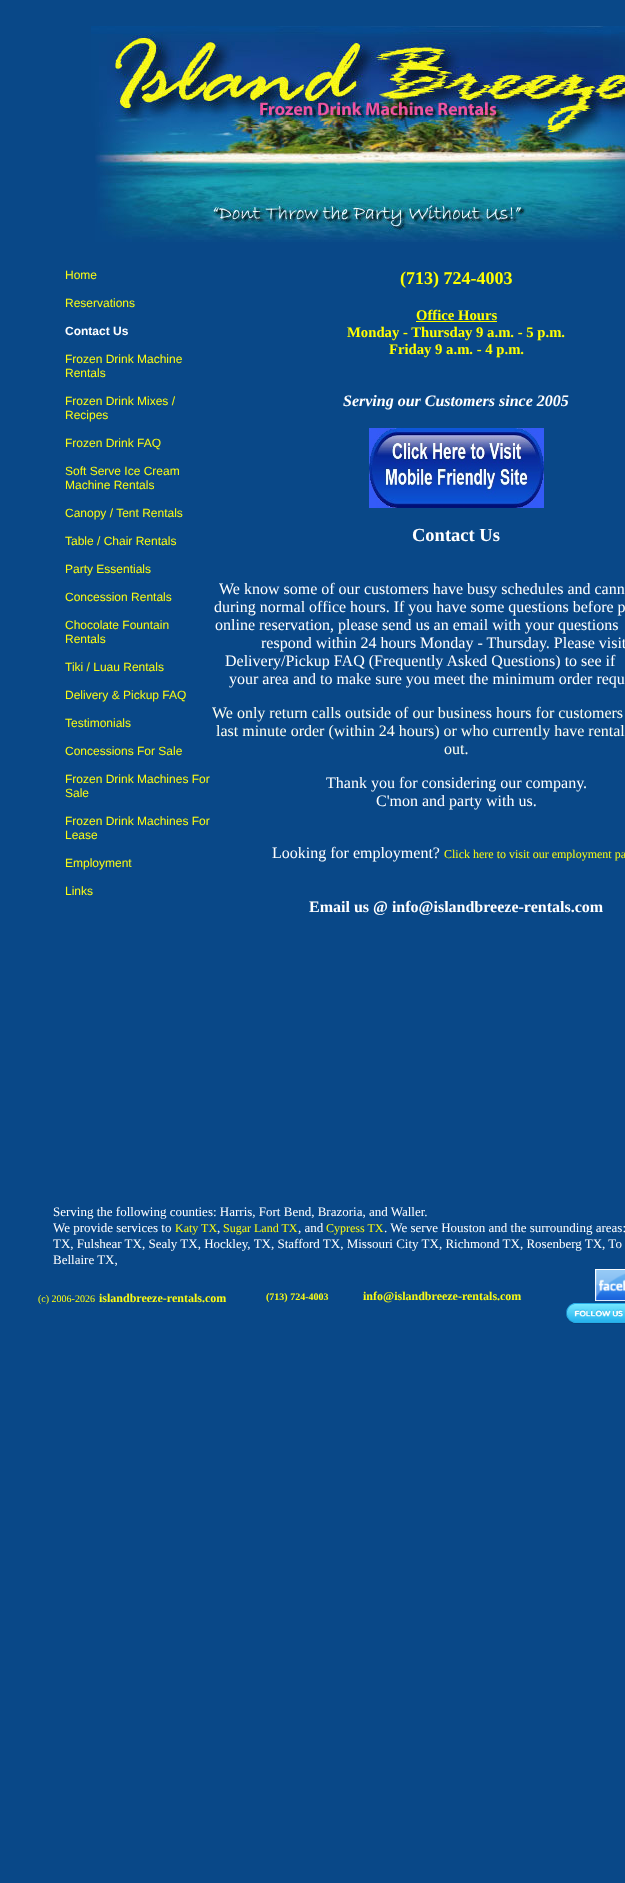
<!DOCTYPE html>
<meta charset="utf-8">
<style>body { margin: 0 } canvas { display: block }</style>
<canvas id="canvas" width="625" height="1883"></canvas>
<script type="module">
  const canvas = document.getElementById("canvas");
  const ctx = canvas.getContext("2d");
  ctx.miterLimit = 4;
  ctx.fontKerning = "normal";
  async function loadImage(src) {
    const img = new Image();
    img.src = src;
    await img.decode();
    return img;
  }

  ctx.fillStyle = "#094888";
  ctx.fillRect(0, 0, 625, 1883);
  ctx.drawImage(await loadImage("img1.png"), 91, 26, 534, 101);
  ctx.drawImage(await loadImage("img2.png"), 95, 127, 530, 115);
  ctx.font = "12px Liberation Sans";
  ctx.fillStyle = "#fafc14";
  ctx.fillText("Home", 65, 279);
  ctx.fillText("Reservations", 65, 307);
  ctx.font = "bold 12px Liberation Sans";
  ctx.fillStyle = "#ffffff";
  ctx.fillText("Contact Us", 65, 335);
  ctx.font = "12px Liberation Sans";
  ctx.fillStyle = "#fafc14";
  ctx.fillText("Frozen Drink Machine", 65, 363);
  ctx.fillText("Rentals", 65, 377);
  ctx.fillText("Frozen Drink Mixes /", 65, 405);
  ctx.fillText("Recipes", 65, 419);
  ctx.fillText("Frozen Drink FAQ", 65, 447);
  ctx.fillText("Soft Serve Ice Cream", 65, 475);
  ctx.fillText("Machine Rentals", 65, 489);
  ctx.fillText("Canopy / Tent Rentals", 65, 517);
  ctx.fillText("Table / Chair Rentals", 65, 545);
  ctx.fillText("Party Essentials", 65, 573);
  ctx.fillText("Concession Rentals", 65, 601);
  ctx.fillText("Chocolate Fountain", 65, 629);
  ctx.fillText("Rentals", 65, 643);
  ctx.fillText("Tiki / Luau Rentals", 65, 671);
  ctx.fillText("Delivery & Pickup FAQ", 65, 699);
  ctx.fillText("Testimonials", 65, 727);
  ctx.fillText("Concessions For Sale", 65, 755);
  ctx.fillText("Frozen Drink Machines For", 65, 783);
  ctx.fillText("Sale", 65, 797);
  ctx.fillText("Frozen Drink Machines For", 65, 825);
  ctx.fillText("Lease", 65, 839);
  ctx.fillText("Employment", 65, 867);
  ctx.fillText("Links", 65, 895);
  ctx.font = "bold 18px Liberation Serif";
  ctx.fillStyle = "#ffff00";
  ctx.fillText("(713) 724-4003", 400, 284);
  ctx.font = "bold 14.7px Liberation Serif";
  ctx.fillText("Office Hours", 416, 320);
  ctx.fillRect(416, 321, 81, 1);
  ctx.fillText("Monday - Thursday 9 a.m. - 5 p.m.", 347, 337);
  ctx.fillText("Friday 9 a.m. - 4 p.m.", 389, 354);
  ctx.font = "italic bold 16px Liberation Serif";
  ctx.fillStyle = "#ffffff";
  ctx.fillText("Serving our Customers since 2005", 343, 406);
  ctx.drawImage(await loadImage("img3.png"), 369, 428, 175, 80);
  ctx.font = "bold 18.5px Liberation Serif";
  ctx.fillText("Contact Us", 412, 541);
  ctx.font = "16px Liberation Serif";
  ctx.fillText("We know some of our customers have busy schedules and cann", 219, 594);
  ctx.fillText("during normal office hours. If you have some questions before p", 214, 612);
  ctx.fillText("online reservation, please send us an email with your questions", 215, 630);
  ctx.fillText("respond within 24 hours Monday - Thursday. Please visit", 261, 648);
  ctx.fillText("Delivery/Pickup FAQ (Frequently Asked Questions) to see if", 225, 666);
  ctx.fillText("your area and to make sure you meet the minimum order requ", 229, 684);
  ctx.fillStyle = "#fffff0";
  ctx.fillText("We only return calls outside of our business hours for customers", 212, 718);
  ctx.fillText("last minute order (within 24 hours) or who currently have rental", 216, 736);
  ctx.fillText("out.", 444, 754);
  ctx.fillStyle = "#ffffff";
  ctx.fillText("Thank you for considering our company.", 326, 788);
  ctx.fillText("C'mon and party with us.", 376, 806);
  ctx.fillText("Looking for employment?", 272, 858);
  ctx.font = "12px Liberation Serif";
  ctx.fillStyle = "#fafc14";
  ctx.fillText("Click here to visit our employment pa", 444, 858);
  ctx.font = "bold 16px Liberation Serif";
  ctx.fillStyle = "#ffffff";
  ctx.fillText("Email us @ info@islandbreeze-rentals.com", 309, 912);
  ctx.font = "13px Liberation Serif";
  ctx.fillText("Serving the following counties: Harris, Fort Bend, Brazoria, and Waller.", 53, 1216);
  ctx.fillText("We provide services to", 53, 1232);
  ctx.font = "12px Liberation Serif";
  ctx.fillStyle = "#fafc14";
  ctx.fillText("Katy TX", 175, 1232);
  ctx.font = "13px Liberation Serif";
  ctx.fillStyle = "#ffffff";
  ctx.fillText(",", 217, 1232);
  ctx.font = "12px Liberation Serif";
  ctx.fillStyle = "#fafc14";
  ctx.fillText("Sugar Land TX", 223, 1232);
  ctx.font = "13px Liberation Serif";
  ctx.fillStyle = "#ffffff";
  ctx.fillText(", and", 298, 1232);
  ctx.font = "12px Liberation Serif";
  ctx.fillStyle = "#fafc14";
  ctx.fillText("Cypress TX", 326, 1232);
  ctx.font = "13px Liberation Serif";
  ctx.fillStyle = "#ffffff";
  ctx.fillText(". We serve Houston and the surrounding areas:", 384, 1232);
  ctx.fillText("TX, Fulshear TX, Sealy TX, Hockley, TX, Stafford TX, Missouri City TX, Richmond TX, Rosenberg TX, To", 53, 1248);
  ctx.fillText("Bellaire TX,", 53, 1264);
  ctx.font = "10px Liberation Serif";
  ctx.fillStyle = "#fafc14";
  ctx.fillText("(c) 2006-2026", 38, 1302);
  ctx.font = "bold 12px Liberation Serif";
  ctx.fillText("islandbreeze-rentals.com", 99, 1302);
  ctx.font = "bold 10px Liberation Serif";
  ctx.fillText("(713) 724-4003", 266, 1300);
  ctx.font = "bold 12px Liberation Serif";
  ctx.fillText("info@islandbreeze-rentals.com", 363, 1300);
  ctx.drawImage(await loadImage("img4.png"), 595, 1269, 30, 32);
  ctx.drawImage(await loadImage("img5.png"), 566, 1303, 59, 21);
</script>
